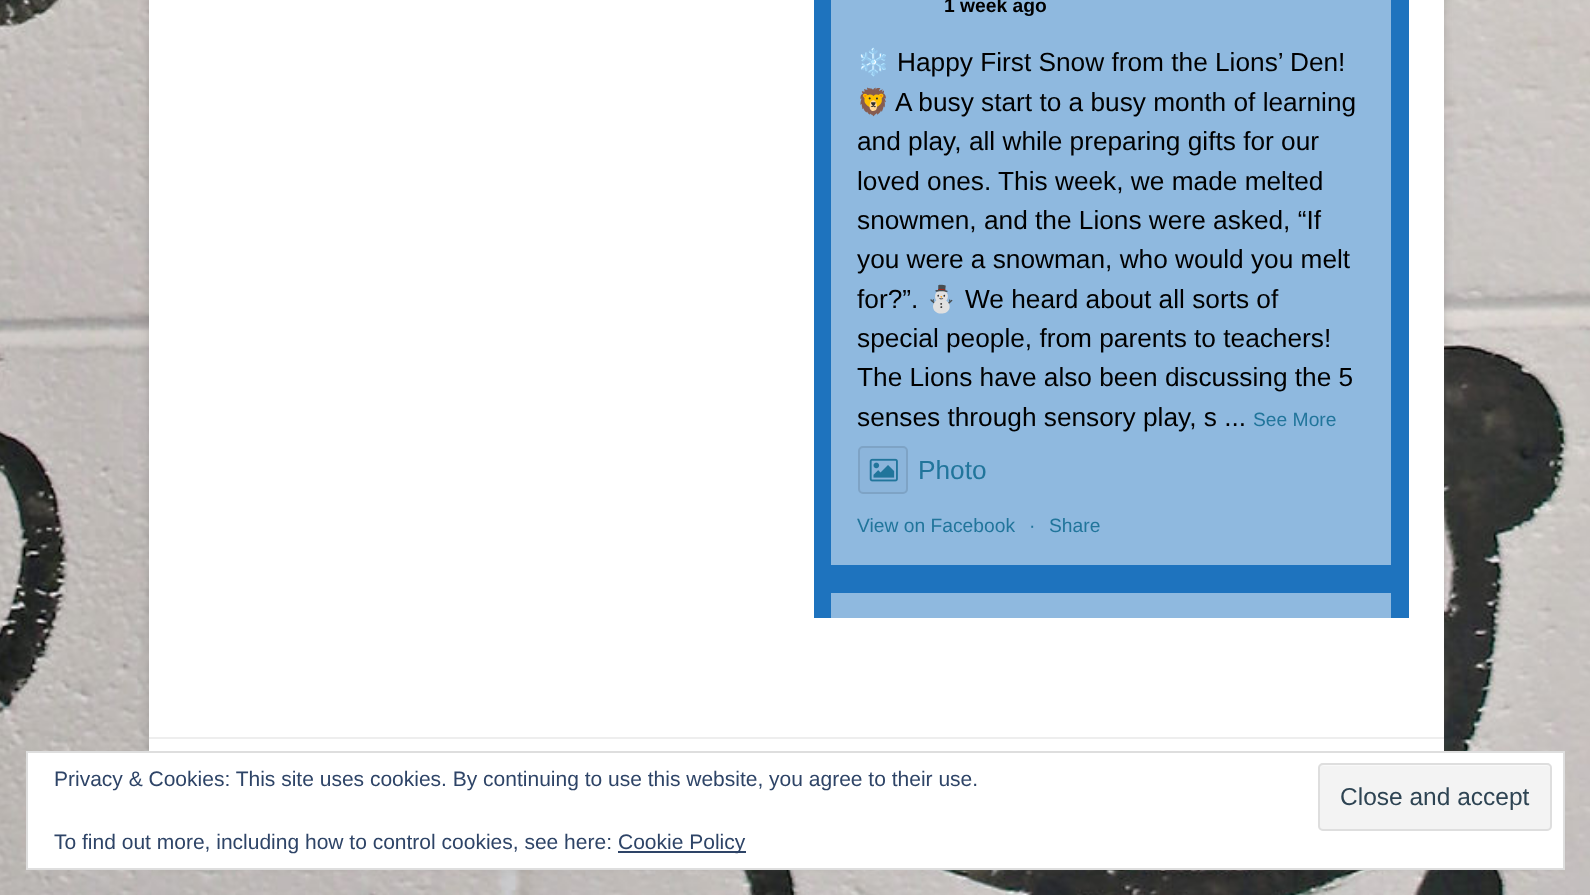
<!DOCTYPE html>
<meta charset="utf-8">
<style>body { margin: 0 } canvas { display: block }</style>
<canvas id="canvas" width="1590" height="895"></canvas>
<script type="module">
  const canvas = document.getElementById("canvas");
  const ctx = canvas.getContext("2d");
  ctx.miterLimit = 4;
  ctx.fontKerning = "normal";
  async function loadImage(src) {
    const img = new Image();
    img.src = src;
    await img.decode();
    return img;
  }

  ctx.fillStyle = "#ffffff";
  ctx.fillRect(0, 0, 1590, 895);
  ctx.drawImage(await loadImage("img1.png"), 0, 0, 1590, 895);
  ctx.fillStyle = "rgba(100, 100, 100, 0.3)";
  ctx.filter = "blur(5px)";
  ctx.beginPath();
  ctx.roundRect(149, -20, 1295, 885, 5);
  ctx.fill();
  ctx.filter = "none";
  ctx.fillStyle = "#ffffff";
  ctx.fillRect(149, 0, 1295, 751);
  ctx.fillStyle = "#1e73be";
  ctx.fillRect(814, 0, 595, 618);
  ctx.fillStyle = "#8fb9df";
  ctx.fillRect(831, 0, 560, 565);
  ctx.font = "bold 19.25px Liberation Sans";
  ctx.fillStyle = "#000000";
  ctx.fillText("1 week ago", 944, 12);
  ctx.font = "26.25px Noto Color Emoji";
  ctx.fillText("❄️", 857, 71);
  ctx.font = "26.25px Liberation Sans";
  ctx.fillText("Happy First Snow from the Lions’ Den!", 897, 71);
  ctx.font = "26.25px Noto Color Emoji";
  ctx.fillText("🦁", 857, 111);
  ctx.font = "26.25px Liberation Sans";
  ctx.fillText("A busy start to a busy month of learning", 895, 111);
  ctx.fillText("and play, all while preparing gifts for our", 857, 150);
  ctx.fillText("loved ones. This week, we made melted", 857, 190);
  ctx.fillText("snowmen, and the Lions were asked, “If", 857, 229);
  ctx.fillText("you were a snowman, who would you melt", 857, 268);
  ctx.fillText("for?”.", 857, 308);
  ctx.font = "26.25px Noto Color Emoji";
  ctx.fillText("⛄️", 925, 308);
  ctx.font = "26.25px Liberation Sans";
  ctx.fillText("We heard about all sorts of", 965, 308);
  ctx.fillText("special people, from parents to teachers!", 857, 347);
  ctx.fillText("The Lions have also been discussing the 5", 857, 386);
  ctx.fillText("senses through sensory play, s ...", 857, 426);
  ctx.font = "19.25px Liberation Sans";
  ctx.fillStyle = "#21759b";
  ctx.fillText("See More", 1253, 426);
  ctx.fillStyle = "#8cb5db";
  ctx.beginPath();
  ctx.roundRect(859, 447, 48, 46, 4);
  ctx.fill();
  ctx.strokeStyle = "#7ea3c5";
  ctx.lineWidth = 2;
  ctx.stroke();
  ctx.drawImage(await loadImage("img2.png"), 869, 458, 29, 24);
  ctx.font = "26.25px Liberation Sans";
  ctx.fillStyle = "#21759b";
  ctx.fillText("Photo", 918, 479);
  ctx.font = "19.25px Liberation Sans";
  ctx.fillText("View on Facebook", 857, 532);
  ctx.fillText("·", 1029, 532);
  ctx.fillText("Share", 1049, 532);
  ctx.fillStyle = "#8fb9df";
  ctx.fillRect(831, 593, 560, 25);
  ctx.fillStyle = "#eeeeee";
  ctx.fillRect(149, 737, 1295, 2);
  ctx.fillStyle = "rgba(0, 0, 0, 0.48)";
  ctx.filter = "blur(5px)";
  ctx.beginPath();
  ctx.roundRect(1486, 795, 70, 70, 5);
  ctx.fill();
  ctx.filter = "none";
  ctx.fillStyle = "#ffffff";
  ctx.beginPath();
  ctx.rect(27, 752, 1537, 117);
  ctx.fill();
  ctx.strokeStyle = "#dedede";
  ctx.stroke();
  ctx.font = "21px Liberation Sans";
  ctx.fillStyle = "#2e4467";
  ctx.fillText("Privacy & Cookies: This site uses cookies. By continuing to use this website, you agree to their use.", 54, 786);
  ctx.fillStyle = "#f3f3f3";
  ctx.beginPath();
  ctx.roundRect(1318, 763, 234, 68, 5);
  ctx.fill();
  ctx.fillStyle = "#f9f9f9";
  ctx.beginPath();
  ctx.moveTo(1323, 766);
  ctx.lineTo(1547, 766);
  ctx.bezierCurveTo(1549, 766, 1550, 768, 1550, 770);
  ctx.lineTo(1550, 829);
  ctx.bezierCurveTo(1551, 828, 1551, 827, 1551, 826);
  ctx.lineTo(1551, 769);
  ctx.bezierCurveTo(1551, 767, 1549, 765, 1547, 765);
  ctx.lineTo(1324, 765);
  ctx.bezierCurveTo(1322, 765, 1320, 767, 1320, 769);
  ctx.lineTo(1320, 770);
  ctx.bezierCurveTo(1320, 768, 1321, 766, 1323, 766);
  ctx.closePath();
  ctx.fill();
  ctx.beginPath();
  ctx.roundRect(1319, 764, 232, 66, 4);
  ctx.stroke();
  ctx.font = "24.5px Liberation Sans";
  ctx.fillStyle = "#2e4453";
  ctx.fillText("Close and accept", 1340, 805);
  ctx.font = "21px Liberation Sans";
  ctx.fillStyle = "#2e4467";
  ctx.fillText("To find out more, including how to control cookies, see here:", 54, 849);
  ctx.fillRect(618, 851, 128, 2);
  ctx.fillText("Cookie Policy", 618, 849);
</script>
